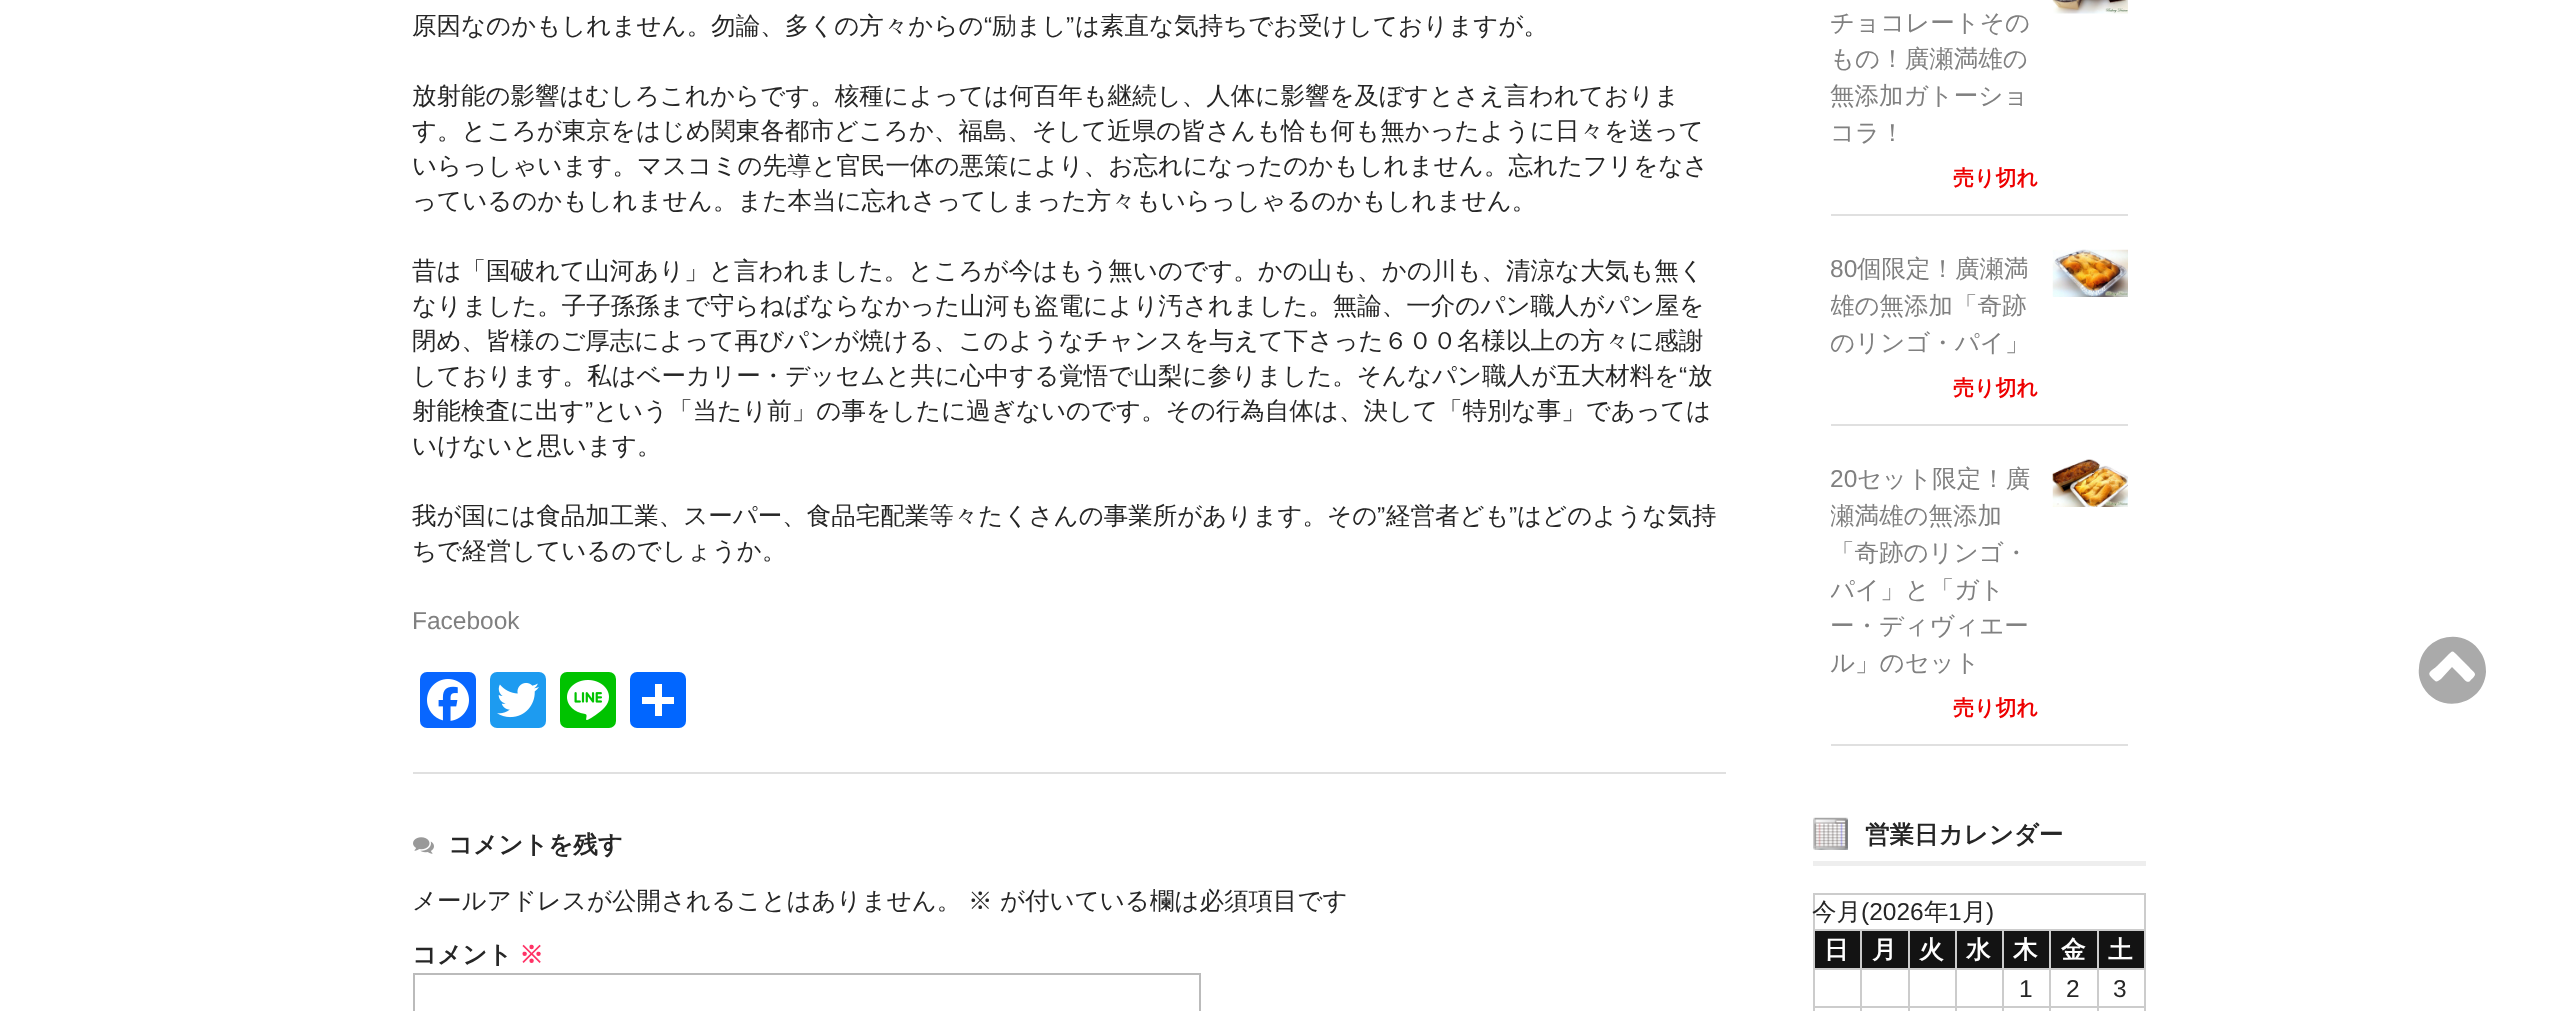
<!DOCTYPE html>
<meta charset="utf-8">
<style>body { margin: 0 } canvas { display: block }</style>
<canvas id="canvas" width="2573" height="1011"></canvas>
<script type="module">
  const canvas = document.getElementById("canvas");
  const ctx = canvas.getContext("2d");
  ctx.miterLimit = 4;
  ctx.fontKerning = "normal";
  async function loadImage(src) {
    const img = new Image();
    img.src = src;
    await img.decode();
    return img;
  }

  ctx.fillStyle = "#ffffff";
  ctx.fillRect(0, 0, 2573, 1011);
  ctx.font = "500 24.5px WenQuanYi Zen Hei";
  ctx.fillStyle = "#262626";
  ctx.fillText("原因なのかもしれません。勿論、多くの方々からの", 412, 34);
  ctx.font = "24.5px Liberation Sans";
  ctx.fillText("“", 984, 34);
  ctx.font = "500 24.5px WenQuanYi Zen Hei";
  ctx.fillText("励まし", 992, 34);
  ctx.font = "24.5px Liberation Sans";
  ctx.fillText("”", 1066, 34);
  ctx.font = "500 24.5px WenQuanYi Zen Hei";
  ctx.fillText("は素直な気持ちでお受けしておりますが。", 1075, 34);
  ctx.fillText("放射能の影響はむしろこれからです。核種によっては何百年も継続し、人体に影響を及ぼすとさえ言われておりま", 412, 104);
  ctx.fillText("す。ところが東京をはじめ関東各都市どころか、福島、そして近県の皆さんも恰も何も無かったように日々を送って", 412, 139);
  ctx.fillText("いらっしゃいます。マスコミの先導と官民一体の悪策により、お忘れになったのかもしれません。忘れたフリをなさ", 412, 174);
  ctx.fillText("っているのかもしれません。また本当に忘れさってしまった方々もいらっしゃるのかもしれません。", 412, 209);
  ctx.fillText("昔は「国破れて山河あり」と言われました。ところが今はもう無いのです。かの山も、かの川も、清涼な大気も無く", 412, 279);
  ctx.fillText("なりました。子子孫孫まで守らねばならなかった山河も盗電により汚されました。無論、一介のパン職人がパン屋を", 412, 314);
  ctx.fillText("閉め、皆様のご厚志によって再びパンが焼ける、このようなチャンスを与えて下さった６００名様以上の方々に感謝", 412, 349);
  ctx.fillText("しております。私はベーカリー・デッセムと共に心中する覚悟で山梨に参りました。そんなパン職人が五大材料を", 412, 384);
  ctx.font = "24.5px Liberation Sans";
  ctx.fillText("“", 1679, 384);
  ctx.font = "500 24.5px WenQuanYi Zen Hei";
  ctx.fillText("放", 1688, 384);
  ctx.fillText("射能検査に出す", 412, 419);
  ctx.font = "24.5px Liberation Sans";
  ctx.fillText("”", 585, 419);
  ctx.font = "500 24.5px WenQuanYi Zen Hei";
  ctx.fillText("という「当たり前」の事をしたに過ぎないのです。その行為自体は、決して「特別な事」であっては", 593, 419);
  ctx.fillText("いけないと思います。", 412, 454);
  ctx.fillText("我が国には食品加工業、スーパー、食品宅配業等々たくさんの事業所があります。その", 412, 524);
  ctx.font = "24.5px Liberation Sans";
  ctx.fillText("”", 1377, 524);
  ctx.font = "500 24.5px WenQuanYi Zen Hei";
  ctx.fillText("経営者ども", 1386, 524);
  ctx.font = "24.5px Liberation Sans";
  ctx.fillText("”", 1509, 524);
  ctx.font = "500 24.5px WenQuanYi Zen Hei";
  ctx.fillText("はどのような気持", 1517, 524);
  ctx.fillText("ちで経営しているのでしょうか。", 412, 559);
  ctx.font = "24.5px Liberation Sans";
  ctx.fillStyle = "#808080";
  ctx.fillText("Facebook", 412, 629);
  ctx.fillStyle = "#0866ff";
  ctx.beginPath();
  ctx.roundRect(420, 672, 56, 56, 7);
  ctx.fill();
  ctx.drawImage(await loadImage("img1.png"), 427, 679, 42, 42);
  ctx.fillStyle = "#1d9bf0";
  ctx.beginPath();
  ctx.roundRect(490, 672, 56, 56, 7);
  ctx.fill();
  ctx.drawImage(await loadImage("img2.png"), 497, 682, 42, 36);
  ctx.fillStyle = "#00c300";
  ctx.beginPath();
  ctx.roundRect(560, 672, 56, 56, 7);
  ctx.fill();
  ctx.drawImage(await loadImage("img3.png"), 567, 680, 42, 40);
  ctx.fillStyle = "#0166ff";
  ctx.beginPath();
  ctx.roundRect(630, 672, 56, 56, 7);
  ctx.fill();
  ctx.fillStyle = "#ffffff";
  ctx.fillRect(655, 684, 7, 32);
  ctx.fillRect(642, 697, 32, 7);
  ctx.fillStyle = "#e0e0e0";
  ctx.fillRect(413, 772, 1313, 2);
  ctx.drawImage(await loadImage("img4.png"), 413, 837, 21, 17);
  ctx.font = "bold 24.5px WenQuanYi Zen Hei";
  ctx.fillStyle = "#262626";
  ctx.fillText("コメントを残す", 448, 853);
  ctx.font = "500 24.5px WenQuanYi Zen Hei";
  ctx.fillText("メールアドレスが公開されることはありません。", 412, 909);
  ctx.fillText("※", 968, 909);
  ctx.fillText("が付いている欄は必須項目です", 1000, 909);
  ctx.font = "bold 24.5px WenQuanYi Zen Hei";
  ctx.fillText("コメント", 412, 963);
  ctx.fillStyle = "#ff3366";
  ctx.fillText("※", 519, 963);
  ctx.strokeStyle = "#bbbbbb";
  ctx.lineWidth = 2;
  ctx.strokeRect(414, 974, 786, 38);
  ctx.fillStyle = "#e0e0e0";
  ctx.fillRect(1831, 214, 297, 2);
  ctx.drawImage(await loadImage("img5.png"), 2052, 0, 76, 14);
  ctx.font = "500 24.5px WenQuanYi Zen Hei";
  ctx.fillStyle = "#808080";
  ctx.fillText("チョコレートその", 1830, 31);
  ctx.fillText("もの！廣瀬満雄の", 1830, 67);
  ctx.fillText("無添加ガトーショ", 1830, 104);
  ctx.fillText("コラ！", 1830, 141);
  ctx.font = "bold 21px WenQuanYi Zen Hei";
  ctx.fillStyle = "#ee0000";
  ctx.fillText("売り切れ", 1953, 185);
  ctx.fillStyle = "#e0e0e0";
  ctx.fillRect(1831, 424, 297, 2);
  ctx.save();
  ctx.beginPath();
  ctx.rect(1831, 233, 297, 191);
  ctx.clip();
  ctx.font = "24.5px Liberation Sans";
  ctx.fillStyle = "#808080";
  ctx.fillText("80", 1830, 277);
  ctx.restore();
  ctx.font = "500 24.5px WenQuanYi Zen Hei";
  ctx.fillStyle = "#808080";
  ctx.fillText("個限定！廣瀬満", 1857, 277);
  ctx.save();
  ctx.beginPath();
  ctx.rect(1831, 233, 297, 191);
  ctx.clip();
  ctx.fillText("雄の無添加「奇跡", 1830, 314);
  ctx.fillText("のリンゴ・パイ」", 1830, 351);
  ctx.restore();
  ctx.drawImage(await loadImage("img6.png"), 2052, 249, 76, 48);
  ctx.font = "bold 21px WenQuanYi Zen Hei";
  ctx.fillStyle = "#ee0000";
  ctx.fillText("売り切れ", 1953, 395);
  ctx.fillStyle = "#e0e0e0";
  ctx.fillRect(1831, 744, 297, 2);
  ctx.font = "24.5px Liberation Sans";
  ctx.fillStyle = "#808080";
  ctx.fillText("20", 1830, 487);
  ctx.font = "500 24.5px WenQuanYi Zen Hei";
  ctx.fillText("セット限定！廣", 1857, 487);
  ctx.save();
  ctx.beginPath();
  ctx.rect(1831, 443, 297, 301);
  ctx.clip();
  ctx.fillText("瀬満雄の無添加", 1830, 524);
  ctx.restore();
  ctx.fillText("「奇跡のリンゴ・", 1830, 561);
  ctx.save();
  ctx.beginPath();
  ctx.rect(1831, 443, 297, 301);
  ctx.clip();
  ctx.fillText("パイ」と「ガト", 1830, 598);
  ctx.restore();
  ctx.fillText("ー・ディヴィエー", 1830, 634);
  ctx.fillText("ル」のセット", 1830, 671);
  ctx.drawImage(await loadImage("img7.png"), 2052, 459, 76, 48);
  ctx.font = "bold 21px WenQuanYi Zen Hei";
  ctx.fillStyle = "#ee0000";
  ctx.fillText("売り切れ", 1953, 715);
  ctx.fillStyle = "#eeeeee";
  ctx.fillRect(1813, 861, 333, 5);
  ctx.drawImage(await loadImage("img8.png"), 1813, 817, 35, 33);
  ctx.font = "bold 24.5px WenQuanYi Zen Hei";
  ctx.fillStyle = "#262626";
  ctx.fillText("営業日カレンダー", 1865, 843);
  ctx.fillStyle = "#cccccc";
  ctx.fillRect(1813, 893, 333, 2);
  ctx.fillRect(2144, 893, 2, 118);
  ctx.fillRect(1813, 893, 2, 118);
  ctx.font = "500 24.5px WenQuanYi Zen Hei";
  ctx.fillStyle = "#262626";
  ctx.fillText("今月", 1812, 920);
  ctx.font = "24.5px Liberation Sans";
  ctx.fillText("(2026", 1861, 920);
  ctx.font = "500 24.5px WenQuanYi Zen Hei";
  ctx.fillText("年", 1924, 920);
  ctx.font = "24.5px Liberation Sans";
  ctx.fillText("1", 1948, 920);
  ctx.font = "500 24.5px WenQuanYi Zen Hei";
  ctx.fillText("月", 1962, 920);
  ctx.font = "24.5px Liberation Sans";
  ctx.fillText(")", 1986, 920);
  ctx.fillStyle = "#131313";
  ctx.fillRect(1815, 931, 45, 37);
  ctx.fillStyle = "#cccccc";
  ctx.fillRect(2097, 929, 49, 2);
  ctx.fillRect(2097, 968, 49, 2);
  ctx.fillRect(2097, 1006, 49, 2);
  ctx.fillRect(2097, 1006, 2, 5);
  ctx.fillRect(2049, 1006, 49, 2);
  ctx.fillRect(2097, 968, 2, 40);
  ctx.fillRect(2049, 968, 49, 2);
  ctx.fillRect(2097, 929, 2, 41);
  ctx.fillRect(2049, 929, 49, 2);
  ctx.fillRect(2049, 1006, 2, 5);
  ctx.fillRect(2002, 1006, 49, 2);
  ctx.fillRect(2049, 968, 2, 40);
  ctx.fillRect(2002, 968, 49, 2);
  ctx.fillRect(2049, 929, 2, 41);
  ctx.fillRect(2002, 929, 49, 2);
  ctx.fillRect(2002, 1006, 2, 5);
  ctx.fillRect(1955, 1006, 49, 2);
  ctx.fillRect(2002, 968, 2, 40);
  ctx.fillRect(1955, 968, 49, 2);
  ctx.fillRect(2002, 929, 2, 41);
  ctx.fillRect(1955, 929, 49, 2);
  ctx.fillRect(1955, 1006, 2, 5);
  ctx.fillRect(1908, 1006, 49, 2);
  ctx.fillRect(1955, 968, 2, 40);
  ctx.fillRect(1908, 968, 49, 2);
  ctx.fillRect(1955, 929, 2, 41);
  ctx.fillRect(1908, 929, 49, 2);
  ctx.fillRect(1908, 1006, 2, 5);
  ctx.fillRect(1860, 1006, 49, 2);
  ctx.fillRect(1908, 968, 2, 40);
  ctx.fillRect(1860, 968, 49, 2);
  ctx.fillRect(1908, 929, 2, 41);
  ctx.fillRect(1860, 929, 49, 2);
  ctx.fillRect(1860, 1006, 2, 5);
  ctx.fillRect(1813, 1006, 49, 2);
  ctx.fillRect(1860, 968, 2, 40);
  ctx.fillRect(1813, 968, 49, 2);
  ctx.fillRect(1860, 929, 2, 41);
  ctx.fillRect(1813, 929, 49, 2);
  ctx.font = "bold 24.5px WenQuanYi Zen Hei";
  ctx.fillStyle = "#ffffff";
  ctx.fillText("日", 1824, 958);
  ctx.fillStyle = "#131313";
  ctx.fillRect(1862, 931, 46, 37);
  ctx.fillStyle = "#ffffff";
  ctx.fillText("月", 1872, 958);
  ctx.fillStyle = "#131313";
  ctx.fillRect(1910, 931, 45, 37);
  ctx.fillStyle = "#ffffff";
  ctx.fillText("火", 1919, 958);
  ctx.fillStyle = "#131313";
  ctx.fillRect(1957, 931, 45, 37);
  ctx.fillStyle = "#ffffff";
  ctx.fillText("水", 1966, 958);
  ctx.fillStyle = "#131313";
  ctx.fillRect(2004, 931, 45, 37);
  ctx.fillStyle = "#ffffff";
  ctx.fillText("木", 2013, 958);
  ctx.fillStyle = "#131313";
  ctx.fillRect(2051, 931, 46, 37);
  ctx.fillStyle = "#ffffff";
  ctx.fillText("金", 2061, 958);
  ctx.fillStyle = "#131313";
  ctx.fillRect(2099, 931, 45, 37);
  ctx.fillStyle = "#ffffff";
  ctx.fillText("土", 2108, 958);
  ctx.font = "24.5px Liberation Sans";
  ctx.fillStyle = "#262626";
  ctx.fillText("1", 2019, 997);
  ctx.fillText("2", 2066, 997);
  ctx.fillText("3", 2113, 997);
  ctx.fillStyle = "#aaaaaa";
  ctx.beginPath();
  ctx.moveTo(2470, 681);
  ctx.bezierCurveTo(2478, 673, 2476, 675, 2468, 666);
  ctx.lineTo(2458, 656);
  ctx.bezierCurveTo(2452, 650, 2453, 650, 2447, 656);
  ctx.lineTo(2437, 666);
  ctx.bezierCurveTo(2433, 670, 2426, 672, 2431, 677);
  ctx.bezierCurveTo(2436, 682, 2436, 683, 2441, 679);
  ctx.lineTo(2452, 667);
  ctx.lineTo(2461, 676);
  ctx.bezierCurveTo(2463, 678, 2467, 684, 2470, 681);
  ctx.closePath();
  ctx.moveTo(2481, 653);
  ctx.bezierCurveTo(2485, 659, 2486, 666, 2486, 672);
  ctx.bezierCurveTo(2484, 705, 2440, 716, 2423, 687);
  ctx.bezierCurveTo(2420, 681, 2418, 675, 2419, 668);
  ctx.bezierCurveTo(2421, 635, 2465, 625, 2481, 653);
  ctx.closePath();
  ctx.fill();
</script>
